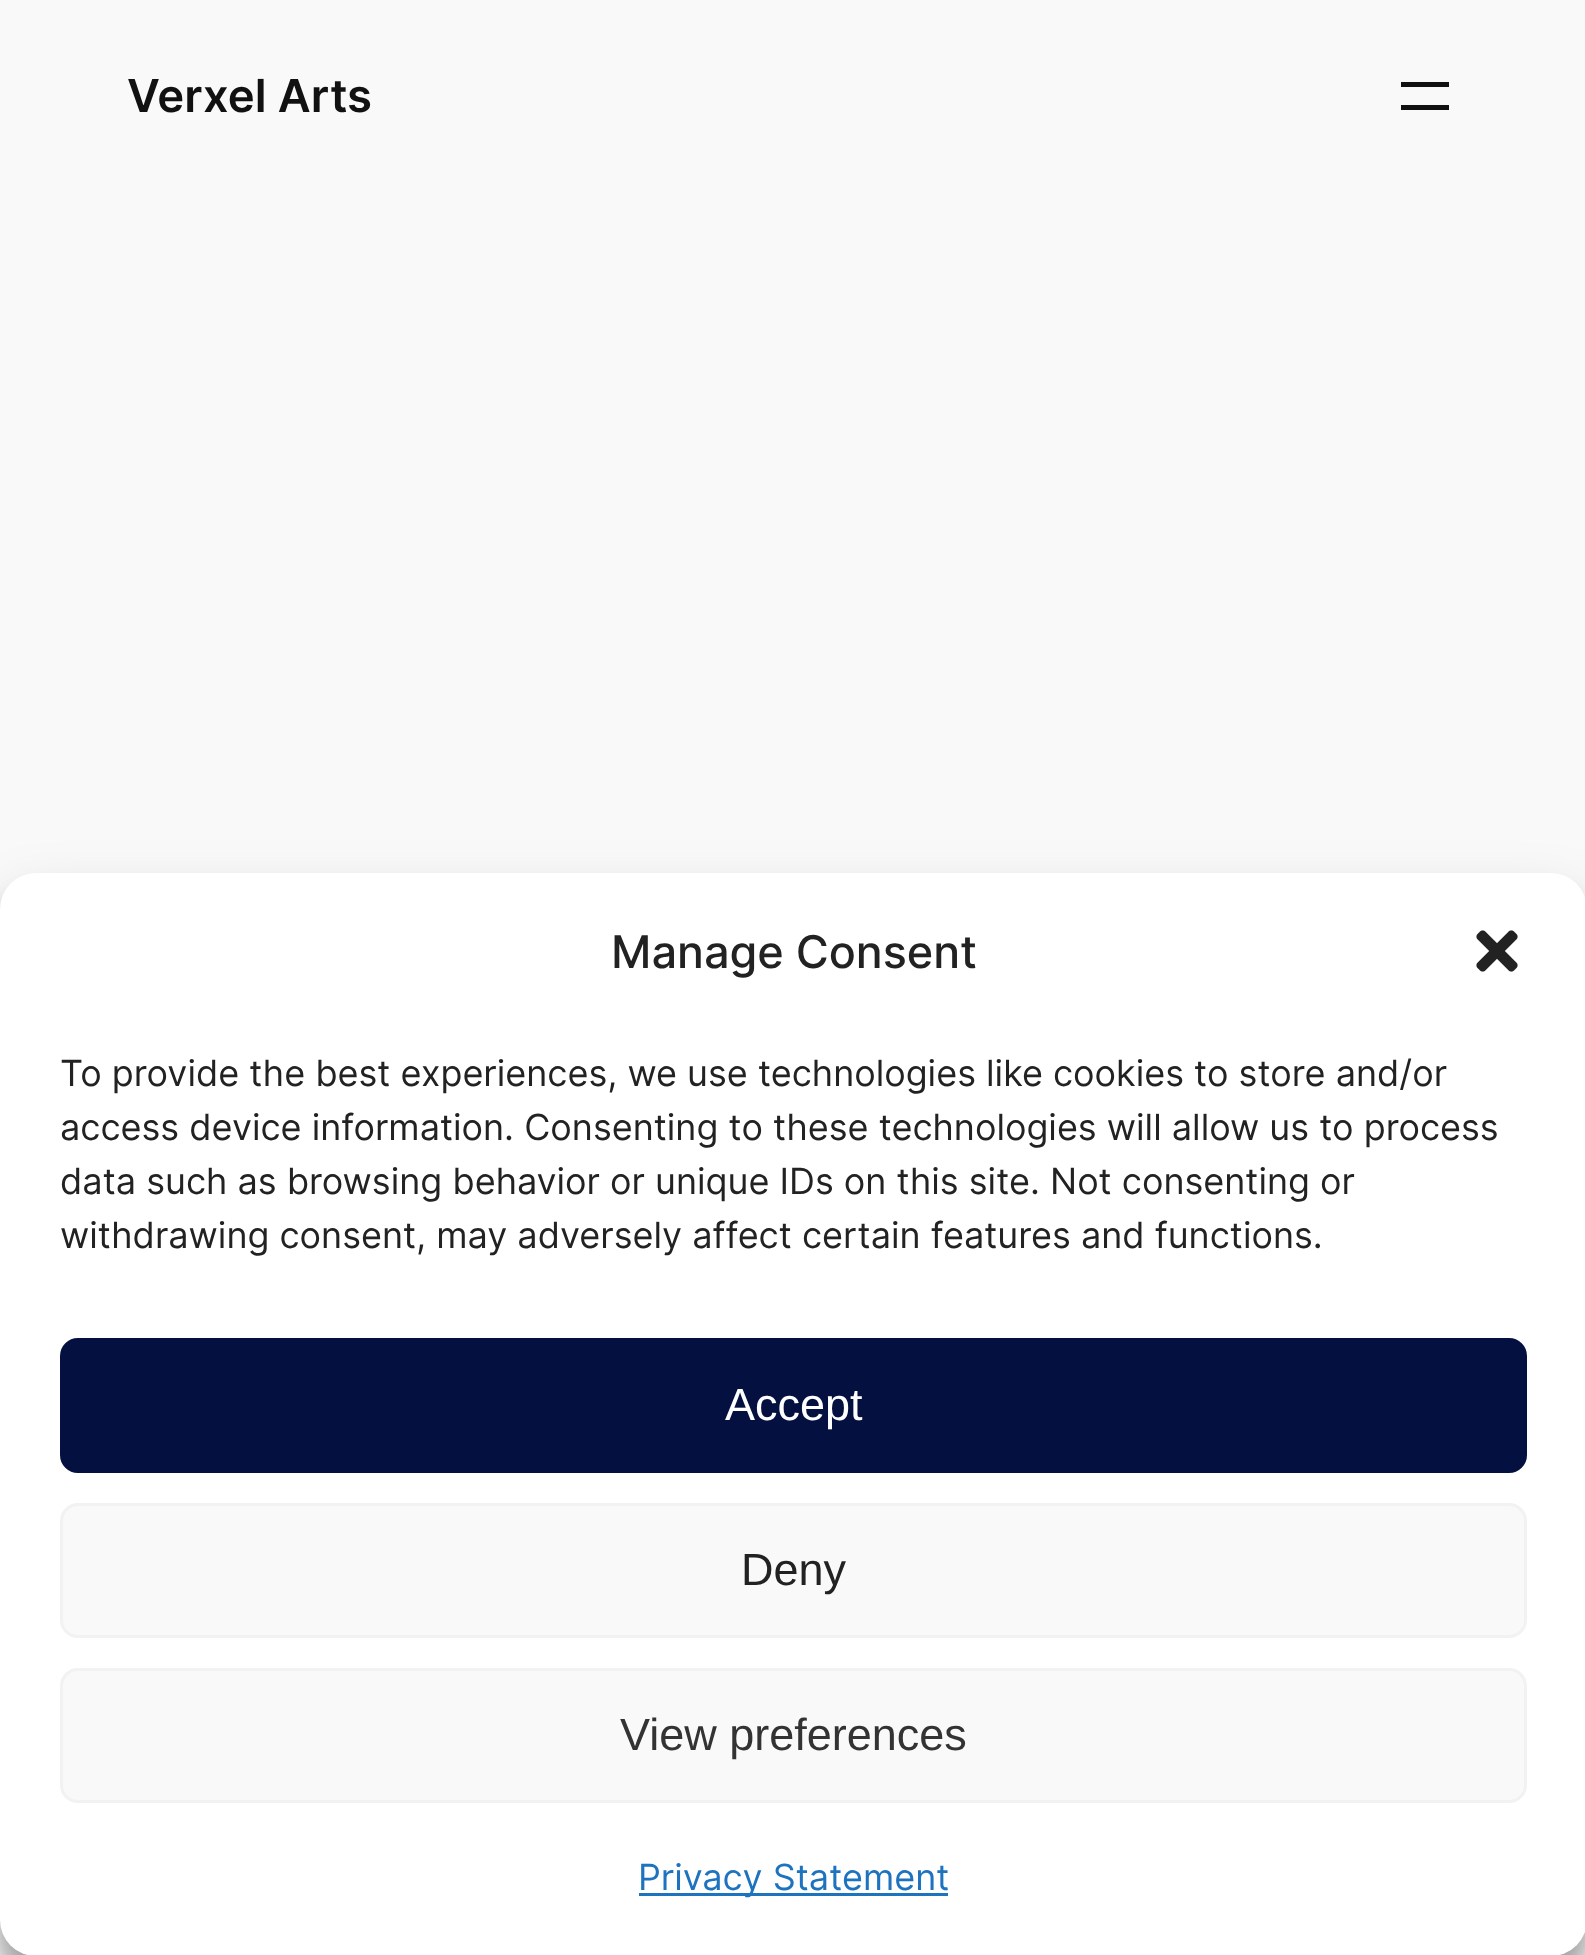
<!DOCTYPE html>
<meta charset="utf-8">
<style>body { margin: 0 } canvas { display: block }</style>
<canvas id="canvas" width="1585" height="1955"></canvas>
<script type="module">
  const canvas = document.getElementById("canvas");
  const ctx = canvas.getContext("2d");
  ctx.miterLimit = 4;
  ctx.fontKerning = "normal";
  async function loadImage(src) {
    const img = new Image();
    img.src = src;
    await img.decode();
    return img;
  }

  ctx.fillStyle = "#f9f9f9";
  ctx.fillRect(0, 0, 1585, 1955);
  ctx.font = "600 45.5px Inter";
  ctx.fillStyle = "#111111";
  ctx.fillText("Verxel Arts", 127, 112);
  ctx.fillRect(1401, 82, 48, 5);
  ctx.fillRect(1401, 105, 48, 5);
  ctx.fillStyle = "rgba(0, 0, 0, 0.23)";
  ctx.filter = "blur(9px)";
  ctx.beginPath();
  ctx.roundRect(0, 891, 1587, 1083, 36);
  ctx.fill();
  ctx.filter = "none";
  ctx.fillStyle = "rgba(0, 0, 0, 0.19)";
  ctx.filter = "blur(30px)";
  ctx.beginPath();
  ctx.roundRect(0, 903, 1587, 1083, 36);
  ctx.fill();
  ctx.filter = "none";
  ctx.fillStyle = "#ffffff";
  ctx.beginPath();
  ctx.roundRect(0, 873, 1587, 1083, 36);
  ctx.fill();
  ctx.font = "500 45px Inter";
  ctx.fillStyle = "#222222";
  ctx.fillText("Manage Consent", 611, 968);
  ctx.drawImage(await loadImage("img1.png"), 1476, 930, 42, 42);
  ctx.font = "36px Inter";
  ctx.fillText("To provide the best experiences, we use technologies like cookies to store and/or", 60, 1086);
  ctx.fillText("access device information. Consenting to these technologies will allow us to process", 60, 1140);
  ctx.fillText("data such as browsing behavior or unique IDs on this site. Not consenting or", 60, 1194);
  ctx.fillText("withdrawing consent, may adversely affect certain features and functions.", 60, 1248);
  ctx.fillStyle = "#041140";
  ctx.beginPath();
  ctx.roundRect(61.5, 1339.5, 1464, 132, 16.5);
  ctx.fill();
  ctx.strokeStyle = "#041140";
  ctx.lineWidth = 3;
  ctx.stroke();
  ctx.font = "45px Liberation Sans";
  ctx.fillStyle = "#ffffff";
  ctx.fillText("Accept", 725, 1420);
  ctx.fillStyle = "#f9f9f9";
  ctx.beginPath();
  ctx.roundRect(61.5, 1504.5, 1464, 132, 16.5);
  ctx.fill();
  ctx.strokeStyle = "#f2f2f2";
  ctx.stroke();
  ctx.fillStyle = "#222222";
  ctx.fillText("Deny", 741, 1585);
  ctx.fillStyle = "#f9f9f9";
  ctx.beginPath();
  ctx.roundRect(61.5, 1669.5, 1464, 132, 16.5);
  ctx.fill();
  ctx.stroke();
  ctx.fillStyle = "#333333";
  ctx.fillText("View preferences", 620, 1750);
  ctx.fillStyle = "#1e73be";
  ctx.fillRect(639, 1893, 309, 3);
  ctx.font = "36px Inter";
  ctx.fillText("Privacy Statement", 638, 1890);
</script>
